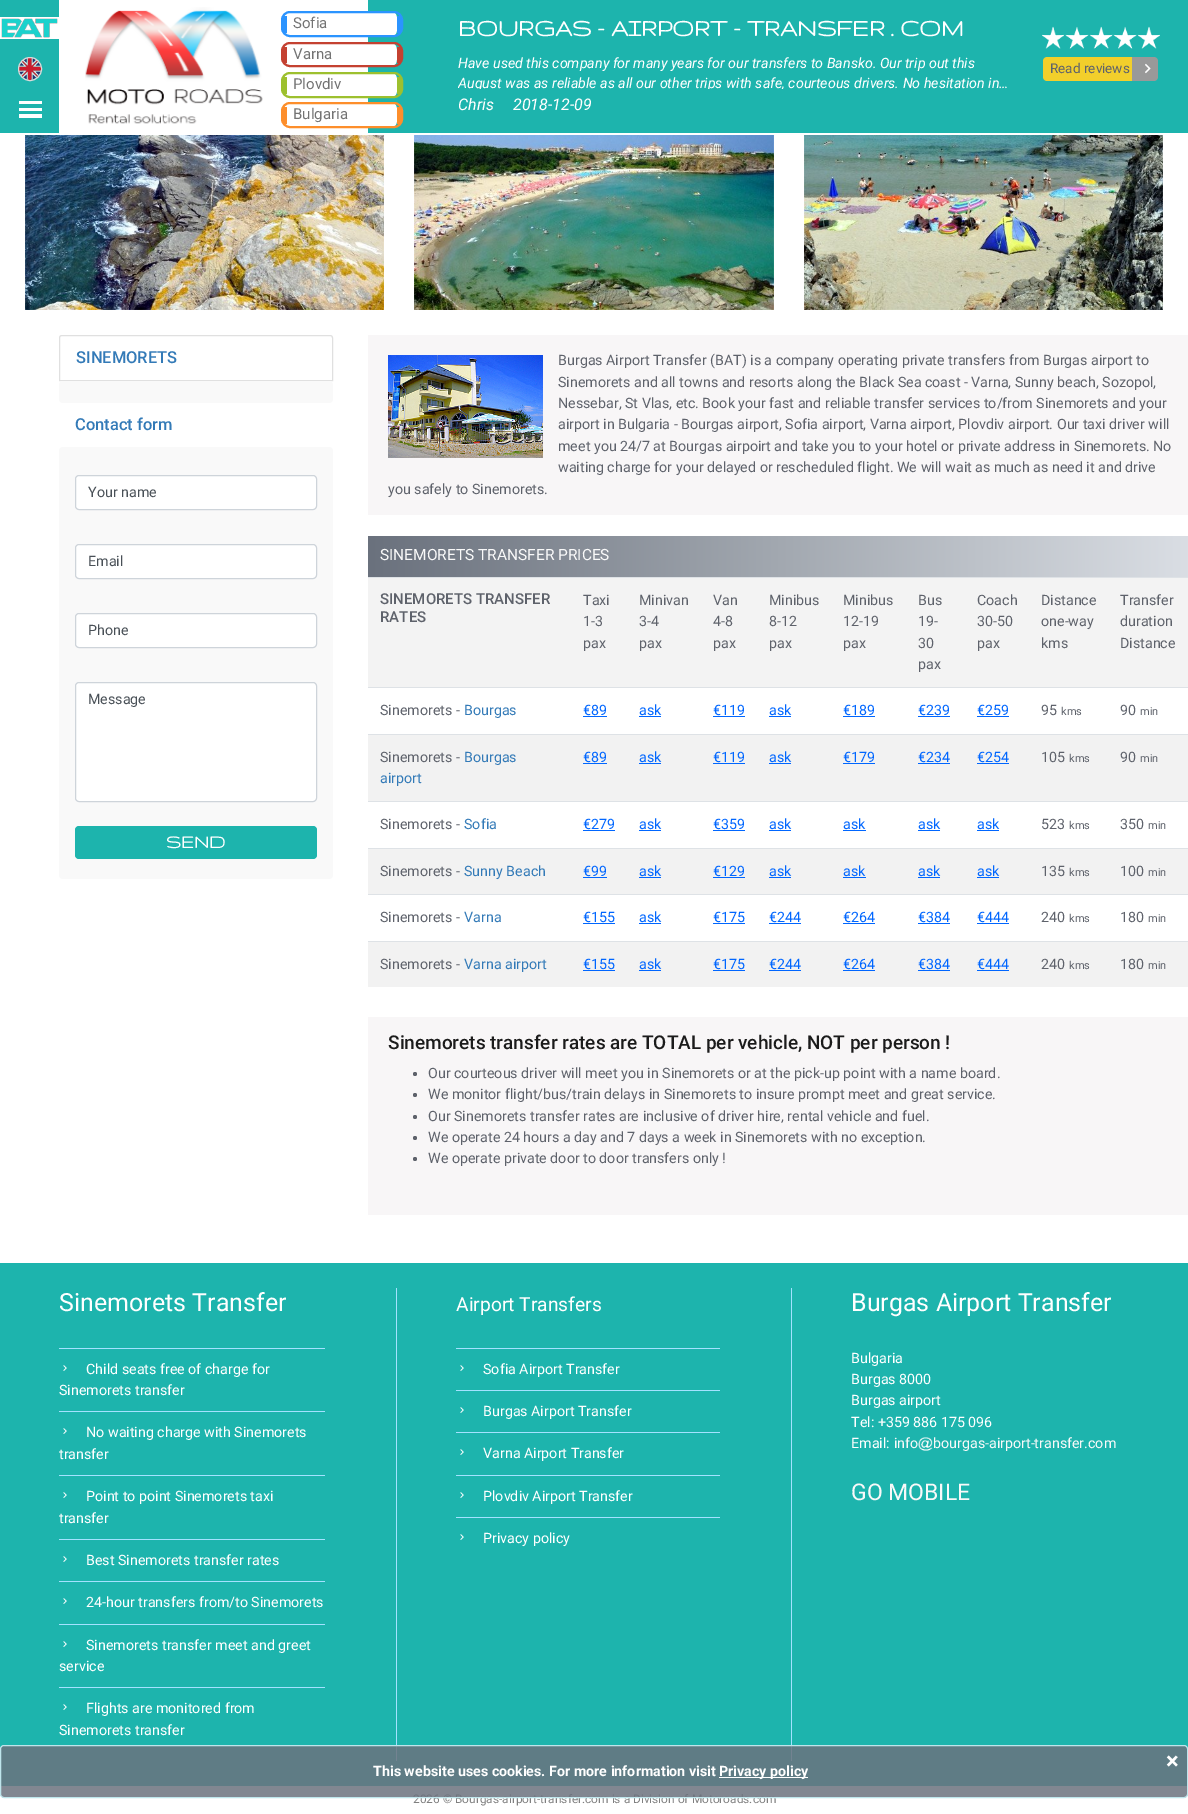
%!PS
<< /PageSize [1188 1814] /PageUsesTransparency true >> setpagedevice
/rgb { 3 { 255 div 3 1 roll } repeat setrgbcolor } def
/font { [ exch dup neg 0 0 3 -1 roll 0 0 ] selectfont } def
/alpha { dup .setfillconstantalpha .setstrokeconstantalpha } def
/circle { newpath 0 360 arc closepath } def
/roundrect { 5 dict begin { /r /h /w /y /x } { exch def } forall
  x r add y moveto x w add y 2 copy h add r arct x w add y h add x 1 index r arct
  x y h add x y r arct x y 2 copy exch w add exch r arct closepath end } def
/picture { 5 dict begin { /h /w /y /x /name } { exch def } forall
  gsave x y translate w h scale
  w h 8 [w 0 0 h 0 0] name (r) file false 3 colorimage grestore end } def
0 .pushpdf14devicefilter
0 1814 translate 1 -1 scale
4 setmiterlimit
255 255 255 rgb
0 0 1188 1814 rectfill
29 180 173 rgb
0 0 59 133 rectfill
(img/1.rgb) 0 17 59 22 picture
(img/2.rgb) 18 57 23 23 picture
219 217 217 rgb
30 69 11.5 circle stroke
[
  [19 101 23 3 255 255 255]
  [19 108 23 3 255 255 255]
  [19 114 23 4 255 255 255]
] { aload pop rgb rectfill } forall
(img/3.rgb) 85 7 178 117 picture
29 180 173 rgb
368 0 820 133 rectfill
255 255 255 rgb
290 13 moveto 394 13 lineto 396 13 397 16 397 20 curveto 397 28 lineto 397 32 396 35 394 35 curveto 290 35 lineto 288 35 287 32 287 28 curveto 287 20 lineto 287 16 288 13 290 13 curveto closepath fill
43 148 255 rgb
2 setlinewidth
282 12 120 24 8 roundrect stroke
397 16 4 17 rectfill
283 16 4 17 rectfill
255 255 255 rgb
290 44 moveto 377 44 lineto 393 44 397 40 397 54 curveto 397 69 395 65 377 65 curveto 289 65 lineto 288 64 287 61 287 59 curveto 287 57 286 44 290 44 curveto closepath fill
196 65 49 rgb
282 43 120 23 8 roundrect stroke
397 47 4 16 rectfill
283 47 4 16 rectfill
255 255 255 rgb
290 74 moveto 394 74 lineto 396 74 397 77 397 81 curveto 397 89 lineto 397 93 396 96 394 96 curveto 290 96 lineto 288 96 287 93 287 89 curveto 287 81 lineto 287 77 288 74 290 74 curveto closepath fill
157 192 46 rgb
282 73 120 24 8 roundrect stroke
397 77 4 17 rectfill
283 77 4 17 rectfill
255 255 255 rgb
290 104 moveto 394 104 lineto 396 104 397 107 397 111 curveto 397 119 lineto 397 123 396 126 394 126 curveto 290 126 lineto 288 126 287 123 287 119 curveto 287 111 lineto 287 107 288 104 290 104 curveto closepath fill
253 142 43 rgb
282 103 120 24 8 roundrect stroke
397 107 4 17 rectfill
283 107 4 17 rectfill
(img/4.rgb) 1042 26 118 23 picture
242 207 43 rgb
1047 57 moveto 1133 57 lineto 1133 81 lineto 1047 81 lineto 1045 81 1043 79 1043 77 curveto 1043 61 lineto 1043 59 1045 57 1047 57 curveto closepath fill
153 153 153 rgb
1132 57 moveto 1154 57 lineto 1156 57 1158 59 1158 61 curveto 1158 77 lineto 1158 79 1156 81 1154 81 curveto 1132 81 lineto closepath fill
(img/5.rgb) 1145 63 6 11 picture
(img/6.rgb) 25 135 359 175 picture
(img/7.rgb) 414 135 360 175 picture
(img/8.rgb) 804 135 359 175 picture
224 224 224 rgb
1 setlinewidth
62 335.5 moveto 330 335.5 lineto 331.5 335.5 332.5 336.5 332.5 338 curveto 332.5 380.5 lineto 59.5 380.5 lineto 59.5 338 lineto 59.5 336.5 60.5 335.5 62 335.5 curveto closepath stroke
249 249 249 rgb
59 381 274 22 4 roundrect fill
59 447 274 432 4 roundrect fill
255 255 255 rgb
75.5 475.5 241 34 3.5 roundrect gsave fill grestore
206 212 218 rgb
stroke
255 255 255 rgb
75.5 544.5 241 34 3.5 roundrect gsave fill grestore
206 212 218 rgb
stroke
255 255 255 rgb
75.5 613.5 241 34 3.5 roundrect gsave fill grestore
206 212 218 rgb
stroke
255 255 255 rgb
75.5 682.5 241 119 3.5 roundrect gsave fill grestore
206 212 218 rgb
stroke
29 180 173 rgb
75 826 242 33 4 roundrect fill
248 246 247 rgb
368 335 820 180 rectfill
(img/9.rgb) 388 355 155 103 picture
gsave 368 536 moveto 1188 536 lineto 1188 577 lineto 368 577 lineto closepath clip newpath
<< /ShadingType 2 /ColorSpace /DeviceRGB /Coords [368 557 1188 557] /Extend [true true] /Function << /FunctionType 2 /Domain [0 1] /C0 [0.416 0.443 0.49] /C1 [0.855 0.871 0.894] /N 1 >> >> shfill grestore
[
  [368 578 820 109 243 243 243]
  [368 577 820 1 222 226 230]
  [583 716 24 1 0 102 255]
  [639 716 22 1 0 102 255]
  [713 716 32 1 0 102 255]
  [769 716 22 1 0 102 255]
  [843 716 32 1 0 102 255]
  [918 716 32 1 0 102 255]
  [977 716 32 1 0 102 255]
  [368 687 820 1 222 226 230]
  [368 735 820 66 242 242 242]
  [583 763 24 1 0 102 255]
  [639 763 22 1 0 102 255]
  [713 763 32 1 0 102 255]
  [769 763 22 1 0 102 255]
  [843 763 32 1 0 102 255]
  [918 763 32 1 0 102 255]
  [977 763 32 1 0 102 255]
  [368 734 820 1 222 226 230]
  [583 830 32 1 0 102 255]
  [639 830 22 1 0 102 255]
  [713 830 32 1 0 102 255]
  [769 830 22 1 0 102 255]
  [843 830 23 1 0 102 255]
  [918 830 22 1 0 102 255]
  [977 830 22 1 0 102 255]
  [368 801 820 1 222 226 230]
  [368 849 820 45 242 242 242]
  [583 877 24 1 0 102 255]
  [639 877 22 1 0 102 255]
  [713 877 32 1 0 102 255]
  [769 877 22 1 0 102 255]
  [843 877 23 1 0 102 255]
  [918 877 22 1 0 102 255]
  [977 877 22 1 0 102 255]
  [368 848 820 1 222 226 230]
  [583 923 32 1 0 102 255]
  [639 923 22 1 0 102 255]
  [713 923 32 1 0 102 255]
  [769 923 32 1 0 102 255]
  [843 923 32 1 0 102 255]
  [918 923 32 1 0 102 255]
  [977 923 32 1 0 102 255]
  [368 894 820 1 222 226 230]
  [368 942 820 45 242 242 242]
  [583 970 32 1 0 102 255]
  [639 970 22 1 0 102 255]
  [713 970 32 1 0 102 255]
  [769 970 32 1 0 102 255]
  [843 970 32 1 0 102 255]
  [918 970 32 1 0 102 255]
  [977 970 32 1 0 102 255]
  [368 941 820 1 222 226 230]
  [368 1017 820 198 248 246 247]
] { aload pop rgb rectfill } forall
94 98 107 rgb
415 1074 2 circle fill
415 1095 2 circle fill
415 1117 2 circle fill
415 1138 2 circle fill
415 1159 2 circle fill
29 180 173 rgb
0 1263 1188 523 rectfill
163 226 255 rgb
59 1348 266 1 rectfill
(img/10.rgb) 63 1365 4 6 picture
59 1411 266 1 rectfill
(img/10.rgb) 63 1428 4 6 picture
59 1475 266 1 rectfill
(img/10.rgb) 63 1492 4 6 picture
59 1539 266 1 rectfill
(img/10.rgb) 63 1556 4 6 picture
59 1581 266 1 rectfill
(img/10.rgb) 63 1598 4 6 picture
59 1624 266 1 rectfill
(img/10.rgb) 63 1641 4 6 picture
59 1687 266 1 rectfill
(img/10.rgb) 63 1704 4 6 picture
[
  [791 1288 1 473 163 226 255]
  [396 1288 1 473 163 226 255]
  [456 1348 264 1 163 226 255]
] { aload pop rgb rectfill } forall
(img/10.rgb) 460 1365 4 6 picture
456 1390 264 1 rectfill
(img/10.rgb) 460 1407 4 6 picture
456 1432 264 1 rectfill
(img/10.rgb) 460 1449 4 6 picture
456 1475 264 1 rectfill
(img/10.rgb) 460 1492 4 6 picture
456 1517 264 1 rectfill
(img/10.rgb) 460 1534 4 6 picture
(img/11.rgb) 918 1437 15 14 picture
/Roboto-Regular 15 font
115 115 115 rgb
[
  [(Sofia) 293 28]
  [(Varna) 293 59]
  [(Plovdiv) 293 89]
  [(Bulgaria) 293 119]
] { aload pop moveto show } forall
/Gruppo-Bold 26.1 font
255 255 255 rgb
458 36 moveto (BOURGAS - AIRPORT - TRANSFER . COM) show
/Roboto-Italic 14.25 font
458 68 moveto (Have used this company for many years for our transfers to Bansko. Our trip out this) show
gsave
458 54 552 35 rectclip
458 88 moveto (August was as reliable as all our other trips with safe, courteous drivers. No hesitation in…) show
grestore
/Roboto-Italic 16 font
458 110 moveto (Chris) show
513 110 moveto (2018-12-09) show
/Roboto-Regular 13.5 font
94 98 107 rgb
1050 73 moveto (Read reviews) show
/Roboto-Medium 16.5 font
51 122 183 rgb
76 363 moveto (SINEMORETS) show
75 430 moveto (Contact form) show
/Roboto-Regular 14.25 font
73 80 87 rgb
[
  [(Your name) 88 497]
  [(Email) 88 566]
  [(Phone) 88 635]
  [(Message) 88 704]
] { aload pop moveto show } forall
/Gruppo-Bold 20 font
255 255 255 rgb
166 848 moveto (SEND) show
/Roboto-Regular 14.25 font
94 98 107 rgb
[
  [(Burgas Airport Transfer \(BAT\) is a company operating private transfers from Burgas airport to) 558 365]
  [(Sinemorets and all towns and resorts along the Black Sea coast - Varna, Sunny beach, Sozopol,) 558 387]
  [(Nessebar, St Vlas, etc. Book your fast and reliable transfer services to/from Sinemorets and your) 558 408]
  [(airport in Bulgaria - Bourgas airport, Sofia airport, Varna airport, Plovdiv airport. Our taxi driver will) 558 429]
  [(meet you 24/7 at Bourgas airpoirt and take you to your hotel or private address in Sinemorets. No) 558 451]
  [(waiting charge for your delayed or rescheduled flight. We will wait as much as need it and drive) 558 472]
  [(you safely to Sinemorets.) 388 494]
] { aload pop moveto show } forall
/Roboto-Regular 15.5 font
249 249 249 rgb
380 560 moveto (SINEMORETS TRANSFER PRICES) show
/Roboto-Medium 15 font
94 98 107 rgb
380 604 moveto (SINEMORETS TRANSFER) show
380 622 moveto (RATES) show
/Roboto-Regular 14.25 font
[
  [(Taxi) 583 605]
  [(1-3) 583 626]
  [(pax) 583 648]
  [(Minivan) 639 605]
  [(3-4) 639 626]
  [(pax) 639 648]
  [(Van) 713 605]
  [(4-8) 713 626]
  [(pax) 713 648]
  [(Minibus) 769 605]
  [(8-12) 769 626]
  [(pax) 769 648]
  [(Minibus) 843 605]
  [(12-19) 843 626]
  [(pax) 843 648]
  [(Bus) 918 605]
  [(19-) 918 626]
  [(30) 918 648]
  [(pax) 918 669]
  [(Coach) 977 605]
  [(30-50) 977 626]
  [(pax) 977 648]
  [(Distance) 1041 605]
  [(one-way) 1041 626]
  [(kms) 1041 648]
  [(Transfer) 1120 605]
  [(duration) 1120 626]
  [(Distance) 1120 648]
  [(Sinemorets -) 380 715]
] { aload pop moveto show } forall
51 122 183 rgb
464 715 moveto (Bourgas) show
0 102 255 rgb
[
  [(€89) 583 715]
  [(ask) 639 715]
  [(€119) 713 715]
  [(ask) 769 715]
  [(€189) 843 715]
  [(€239) 918 715]
  [(€259) 977 715]
] { aload pop moveto show } forall
94 98 107 rgb
1041 715 moveto (95) show
/Roboto-Regular 11 font
1061 715 moveto (kms) show
/Roboto-Regular 14.25 font
1120 715 moveto (90) show
/Roboto-Regular 11 font
1140 715 moveto (min) show
/Roboto-Regular 14.25 font
380 762 moveto (Sinemorets -) show
51 122 183 rgb
464 762 moveto (Bourgas) show
380 783 moveto (airport) show
0 102 255 rgb
[
  [(€89) 583 762]
  [(ask) 639 762]
  [(€119) 713 762]
  [(ask) 769 762]
  [(€179) 843 762]
  [(€234) 918 762]
  [(€254) 977 762]
] { aload pop moveto show } forall
94 98 107 rgb
1041 762 moveto (105) show
/Roboto-Regular 11 font
1069 762 moveto (kms) show
/Roboto-Regular 14.25 font
1120 762 moveto (90) show
/Roboto-Regular 11 font
1140 762 moveto (min) show
/Roboto-Regular 14.25 font
380 829 moveto (Sinemorets -) show
51 122 183 rgb
464 829 moveto (Sofia) show
0 102 255 rgb
[
  [(€279) 583 829]
  [(ask) 639 829]
  [(€359) 713 829]
  [(ask) 769 829]
  [(ask) 843 829]
  [(ask) 918 829]
  [(ask) 977 829]
] { aload pop moveto show } forall
94 98 107 rgb
1041 829 moveto (523) show
/Roboto-Regular 11 font
1069 829 moveto (kms) show
/Roboto-Regular 14.25 font
1120 829 moveto (350) show
/Roboto-Regular 11 font
1148 829 moveto (min) show
/Roboto-Regular 14.25 font
380 876 moveto (Sinemorets -) show
51 122 183 rgb
464 876 moveto (Sunny Beach) show
0 102 255 rgb
[
  [(€99) 583 876]
  [(ask) 639 876]
  [(€129) 713 876]
  [(ask) 769 876]
  [(ask) 843 876]
  [(ask) 918 876]
  [(ask) 977 876]
] { aload pop moveto show } forall
94 98 107 rgb
1041 876 moveto (135) show
/Roboto-Regular 11 font
1069 876 moveto (kms) show
/Roboto-Regular 14.25 font
1120 876 moveto (100) show
/Roboto-Regular 11 font
1148 876 moveto (min) show
/Roboto-Regular 14.25 font
380 922 moveto (Sinemorets -) show
51 122 183 rgb
464 922 moveto (Varna) show
0 102 255 rgb
[
  [(€155) 583 922]
  [(ask) 639 922]
  [(€175) 713 922]
  [(€244) 769 922]
  [(€264) 843 922]
  [(€384) 918 922]
  [(€444) 977 922]
] { aload pop moveto show } forall
94 98 107 rgb
1041 922 moveto (240) show
/Roboto-Regular 11 font
1069 922 moveto (kms) show
/Roboto-Regular 14.25 font
1120 922 moveto (180) show
/Roboto-Regular 11 font
1148 922 moveto (min) show
/Roboto-Regular 14.25 font
380 969 moveto (Sinemorets -) show
51 122 183 rgb
464 969 moveto (Varna airport) show
0 102 255 rgb
[
  [(€155) 583 969]
  [(ask) 639 969]
  [(€175) 713 969]
  [(€244) 769 969]
  [(€264) 843 969]
  [(€384) 918 969]
  [(€444) 977 969]
] { aload pop moveto show } forall
94 98 107 rgb
1041 969 moveto (240) show
/Roboto-Regular 11 font
1069 969 moveto (kms) show
/Roboto-Regular 14.25 font
1120 969 moveto (180) show
/Roboto-Regular 11 font
1148 969 moveto (min) show
/Roboto-Medium 19 font
27 27 27 rgb
388 1049 moveto (Sinemorets transfer rates are TOTAL per vehicle, NOT per person !) show
/Roboto-Regular 14.25 font
94 98 107 rgb
[
  [(Our courteous driver will meet you in Sinemorets or at the pick-up point with a name board.) 428 1078]
  [(We monitor flight/bus/train delays in Sinemorets to insure prompt meet and great service.) 428 1099]
  [(Our Sinemorets transfer rates are inclusive of driver hire, rental vehicle and fuel.) 428 1121]
  [(We operate 24 hours a day and 7 days a week in Sinemorets with no exception.) 428 1142]
  [(We operate private door to door transfers only !) 428 1163]
] { aload pop moveto show } forall
/Roboto-Regular 25 font
255 255 255 rgb
59 1311 moveto (Sinemorets Transfer) show
/Roboto-Regular 14.25 font
[
  [(Child seats free of charge for) 86 1374]
  [(Sinemorets transfer) 59 1395]
  [(No waiting charge with Sinemorets) 86 1437]
  [(transfer) 59 1459]
  [(Point to point Sinemorets taxi) 86 1501]
  [(transfer) 59 1523]
  [(Best Sinemorets transfer rates) 86 1565]
  [(24-hour transfers from/to Sinemorets) 86 1607]
  [(Sinemorets transfer meet and greet) 86 1650]
  [(service) 59 1671]
  [(Flights are monitored from) 86 1713]
  [(Sinemorets transfer) 59 1735]
] { aload pop moveto show } forall
/Roboto-Regular 19.25 font
456 1311 moveto (Airport Transfers) show
/Roboto-Regular 14.25 font
[
  [(Sofia Airport Transfer) 483 1374]
  [(Burgas Airport Transfer) 483 1416]
  [(Varna Airport Transfer) 483 1458]
  [(Plovdiv Airport Transfer) 483 1501]
  [(Privacy policy) 483 1543]
] { aload pop moveto show } forall
/Roboto-Regular 25 font
851 1311 moveto (Burgas Airport Transfer) show
/Roboto-Regular 14.25 font
[
  [(Bulgaria) 851 1363]
  [(Burgas 8000) 851 1384]
  [(Burgas airport) 851 1405]
  [(Tel: +359 886 175 096) 851 1427]
  [(Еmail:) 851 1448]
] { aload pop moveto show } forall
249 249 249 rgb
894 1448 moveto (info) show
933 1448 moveto (bourgas-airport-transfer.com) show
/Roboto-Regular 23 font
851 1500 moveto (GO MOBILE) show
/Roboto-Regular 11.9 font
128 128 128 rgb
413 1803 moveto (2026 © Bourgas-airport-transfer.com is a Division of Motoroads.com) show
0.85 alpha
107 114 126 rgb
0.5 1745.5 1187 52 3.5 roundrect fill
1 alpha
190 229 235 rgb
0.5 1745.5 1187 52 3.5 roundrect stroke
/Roboto-Bold 24 font
255 255 255 rgb
1166 1769 moveto (×) show
719 1777 89 1 rectfill
/Roboto-Bold 14.25 font
719 1776 moveto (Privacy policy) show
373 1776 moveto (This website uses cookies. For more information visit) show
.poppdf14devicefilter showpage
